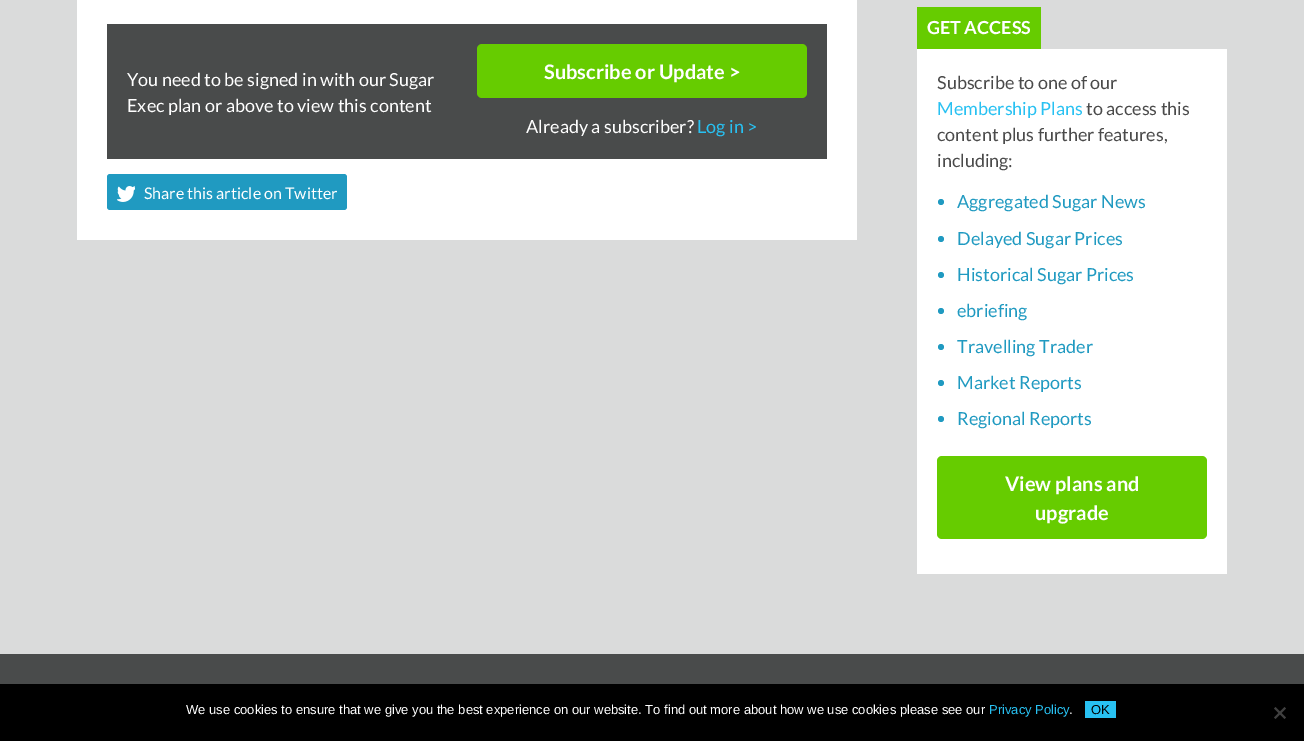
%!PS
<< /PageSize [1304 741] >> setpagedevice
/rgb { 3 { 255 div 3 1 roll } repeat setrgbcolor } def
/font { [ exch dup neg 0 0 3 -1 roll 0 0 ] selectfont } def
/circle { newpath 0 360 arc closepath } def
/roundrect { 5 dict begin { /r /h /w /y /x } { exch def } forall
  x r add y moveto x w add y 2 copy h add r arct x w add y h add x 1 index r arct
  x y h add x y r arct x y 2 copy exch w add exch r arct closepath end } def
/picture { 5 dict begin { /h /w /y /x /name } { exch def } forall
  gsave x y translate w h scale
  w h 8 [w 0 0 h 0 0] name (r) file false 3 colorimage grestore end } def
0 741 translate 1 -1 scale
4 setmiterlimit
218 219 219 rgb
0 0 1304 741 rectfill
255 255 255 rgb
77 0 780 240 rectfill
73 75 75 rgb
107 24 720 135 rectfill
102 204 0 rgb
477 44 330 54 5 roundrect fill
32 154 193 rgb
107 174 240 36 3 roundrect fill
(img/1.rgb) 117 186 18 16 picture
102 204 0 rgb
917 7 124 42 rectfill
255 255 255 rgb
917 49 310 525 rectfill
32 154 193 rgb
941 202 3 circle fill
941 239 3 circle fill
941 275 3 circle fill
941 311 3 circle fill
941 347 3 circle fill
941 383 3 circle fill
941 419 3 circle fill
102 204 0 rgb
937 456 270 83 5 roundrect fill
[
  [0 654 1304 30 73 75 75]
  [0 684 1304 57 0 0 0]
  [1085 701 31 17 40 193 242]
] { aload pop rgb rectfill } forall
64 64 64 rgb
1284.5 707 moveto 1286 708.5 lineto 1275.5 719 lineto 1274 717.5 lineto closepath fill
1274 708.5 moveto 1275.5 707 lineto 1286 717.5 lineto 1284.5 719 lineto closepath fill
/Lato-Regular 18 font
255 255 255 rgb
127 86 moveto (You need to be signed in with our Sugar) show
127 112 moveto (Exec plan or above to view this content) show
/Lato-Bold 20 font
544 79 moveto (Subscribe or Update >) show
/Lato-Regular 18 font
526 133 moveto (Already a subscriber?) show
40 193 242 rgb
697 133 moveto (Log in >) show
/Lato-Regular 16 font
255 255 255 rgb
144 199 moveto (Share this article on Twitter) show
/Lato-Bold 18 font
927 34 moveto (GET ACCESS) show
/Lato-Regular 18 font
74 74 74 rgb
937 89 moveto (Subscribe to one of our) show
40 193 242 rgb
937 115 moveto (Membership Plans) show
74 74 74 rgb
[
  [(to access this) 1086 115]
  [(content plus further features,) 937 141]
  [(including:) 937 167]
] { aload pop moveto show } forall
32 154 193 rgb
[
  [(Aggregated Sugar News) 957 208]
  [(Delayed Sugar Prices) 957 245]
  [(Historical Sugar Prices) 957 281]
  [(ebriefing) 957 317]
  [(Travelling Trader) 957 353]
  [(Market Reports) 957 389]
  [(Regional Reports) 957 425]
] { aload pop moveto show } forall
/Lato-Bold 20 font
255 255 255 rgb
1005 491 moveto (View plans and) show
1035 520 moveto (upgrade) show
/LiberationSans-Regular 13 font
186 714 moveto (We use cookies to ensure that we give you the best experience on our website. To find out more about how we use cookies please see our) show
40 193 242 rgb
989 714 moveto (Privacy Policy) show
255 255 255 rgb
1069 714 moveto (.) show
0 0 0 rgb
1091 714 moveto (OK) show
showpage
